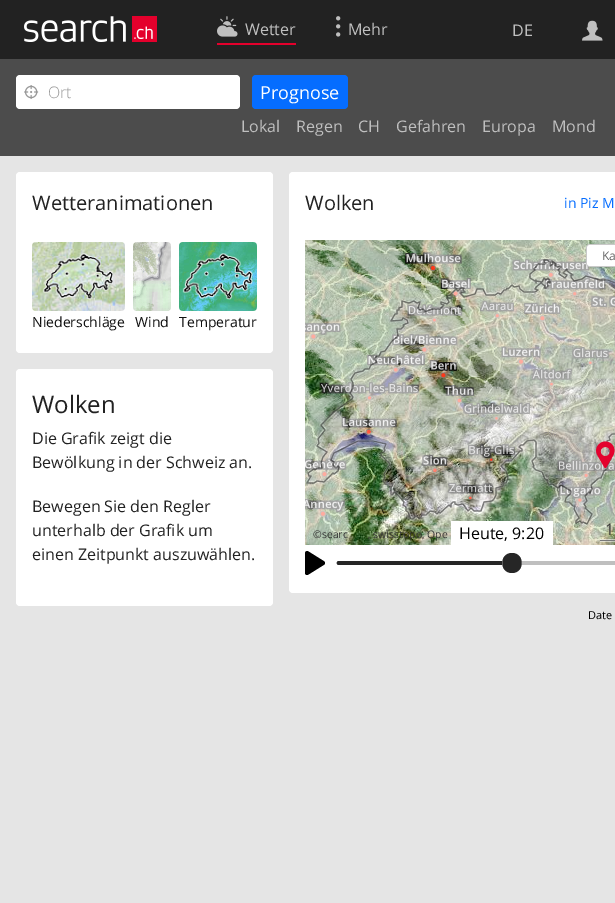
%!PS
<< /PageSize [615 903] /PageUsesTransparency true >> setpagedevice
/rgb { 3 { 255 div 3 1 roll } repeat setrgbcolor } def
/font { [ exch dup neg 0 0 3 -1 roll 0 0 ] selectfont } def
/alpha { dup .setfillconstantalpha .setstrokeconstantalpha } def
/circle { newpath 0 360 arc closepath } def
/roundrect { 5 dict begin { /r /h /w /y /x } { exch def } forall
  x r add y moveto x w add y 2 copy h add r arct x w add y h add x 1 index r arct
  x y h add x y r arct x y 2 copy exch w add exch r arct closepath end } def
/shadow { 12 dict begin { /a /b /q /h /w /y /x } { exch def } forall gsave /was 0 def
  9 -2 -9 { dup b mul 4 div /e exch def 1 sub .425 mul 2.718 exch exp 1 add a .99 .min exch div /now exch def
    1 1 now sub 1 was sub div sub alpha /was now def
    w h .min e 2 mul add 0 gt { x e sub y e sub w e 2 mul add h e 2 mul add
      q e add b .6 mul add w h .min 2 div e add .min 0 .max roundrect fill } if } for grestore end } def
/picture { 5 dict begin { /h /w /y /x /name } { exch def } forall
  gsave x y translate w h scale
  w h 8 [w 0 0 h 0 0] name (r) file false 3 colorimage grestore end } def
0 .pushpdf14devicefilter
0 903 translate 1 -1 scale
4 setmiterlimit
229 229 229 rgb
0 0 615 903 rectfill
34 34 34 rgb
0 0 615 59 rectfill
(img/1.rgb) 24 16 133 26 picture
228 0 44 rgb
217 43 79 2 rectfill
(img/2.rgb) 217 16 21 21 picture
(img/3.rgb) 336 16 5 21 picture
(img/4.rgb) 582 20 21 21 picture
76 76 76 rgb
0 59 615 97 rectfill
255 255 255 rgb
16 75 224 34 4 roundrect fill
(img/5.rgb) 24 85 15 14 picture
5 109 255 rgb
252 75 96 34 4 roundrect fill
255 255 255 rgb
16 172 257 181 4 roundrect fill
(img/6.rgb) 32 242 93 69 picture
209 213 209 rgb
73 298 1 1 rectfill
(img/7.rgb) 43 253 71 47 picture
(img/8.rgb) 133 242 38 69 picture
(img/9.rgb) 133 280 38 31 picture
(img/10.rgb) 179 242 78 69 picture
(img/11.rgb) 182 253 71 47 picture
255 255 255 rgb
16 369 257 237 4 roundrect fill
289 172 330 421 4 roundrect fill
(img/12.rgb) 305 240 310 305 picture
(img/15.rgb) 305 252 310 265 picture
(img/13.rgb) 305 240 310 305 picture
(img/14.rgb) 306 259 309 266 picture
(img/16.rgb) 596 441 19 28 picture
3 3 3 rgb
587 245 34 23 4 0.5 0.08 shadow
201 201 201 rgb
590 244 moveto 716 244 lineto 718 244 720 246 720 248 curveto 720 263 lineto 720 265 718 267 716 267 curveto 590 267 lineto 588 267 586 265 586 263 curveto 586 248 lineto 586 246 588 244 590 244 curveto closepath fill
255 255 255 rgb
590 245 moveto 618 245 lineto 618 266 lineto 590 266 lineto 588.5 266 587 264.5 587 263 curveto 587 248 lineto 587 246.5 588.5 245 590 245 curveto closepath fill
0.5 alpha
[
  [600 541 15 1 255 255 255]
  [600 539 15 1 255 255 255]
] { aload pop rgb rectfill } forall
1 alpha
[
  [600 540 15 1 120 120 120]
  [451 521 102 24 255 255 255]
] { aload pop rgb rectfill } forall
0 0 0 rgb
307 553 moveto 323 563 lineto 307 573 lineto closepath gsave fill grestore
4 setlinewidth
1 setlinejoin
stroke
191 191 191 rgb
339 561 moveto 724 561 lineto 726 561 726 563 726 564 curveto 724 565 lineto 339 565 lineto 336 565 336 561 339 561 curveto closepath fill
38 38 38 rgb
339 561 moveto 506 561 lineto 507 562 lineto 509 563 508 565 506 565 curveto 339 565 lineto 336 565 336 561 339 561 curveto closepath fill
255 255 255 rgb
512 563 10 circle fill
38 38 38 rgb
512 553 moveto 525 553 525 573 512 573 curveto 499 573 499 553 512 553 curveto closepath fill
/OpenSans-Regular 16 font
191 191 191 rgb
[
  [(Wetter) 245 35]
  [(Mehr) 348 35]
  [(DE) 512 36]
] { aload pop moveto show } forall
/OpenSans-Light 16 font
153 153 153 rgb
48 98 moveto (Ort) show
/OpenSans-Regular 18 font
255 255 255 rgb
260 99 moveto (Prognose) show
/OpenSans-Regular 16 font
191 191 191 rgb
[
  [(Lokal) 241 132]
  [(Regen) 296 132]
  [(CH) 358 132]
  [(Gefahren) 396 132]
  [(Europa) 482 132]
  [(Mond) 552 132]
] { aload pop moveto show } forall
/OpenSans-Regular 20 font
34 34 34 rgb
32 210 moveto (Wetteranimationen) show
/OpenSans-Regular 14 font
17 17 17 rgb
[
  [(Niederschläge) 32 327]
  [(Wind) 135 327]
  [(Temperatur) 179 327]
] { aload pop moveto show } forall
/OpenSans-Regular 24 font
34 34 34 rgb
32 413 moveto (Wolken) show
/OpenSans-Regular 16 font
[
  [(Die Grafik zeigt die) 32 444]
  [(Bewölkung in der Schweiz an.) 32 468]
  [(Bewegen Sie den Regler) 32 512]
  [(unterhalb der Grafik um) 32 536]
  [(einen Zeitpunkt auszuwählen.) 32 560]
] { aload pop moveto show } forall
/OpenSans-Regular 20 font
305 210 moveto (Wolken) show
/OpenSans-Regular 14 font
5 109 255 rgb
564 208 moveto (in Piz M) show
/OpenSans-Regular 12 font
104 104 104 rgb
602 260 moveto (Ka) show
/OpenSans-Regular 10.5 font
53 53 53 rgb
313 538 moveto (©searc) show
368 538 moveto (, swisstopo, Ope) show
/OpenSans-Regular 16 font
605 535 moveto (1) show
0 0 0 rgb
459 539 moveto (Heute, 9:20) show
/OpenSans-Regular 11 font
588 619 moveto (Date) show
.poppdf14devicefilter showpage
